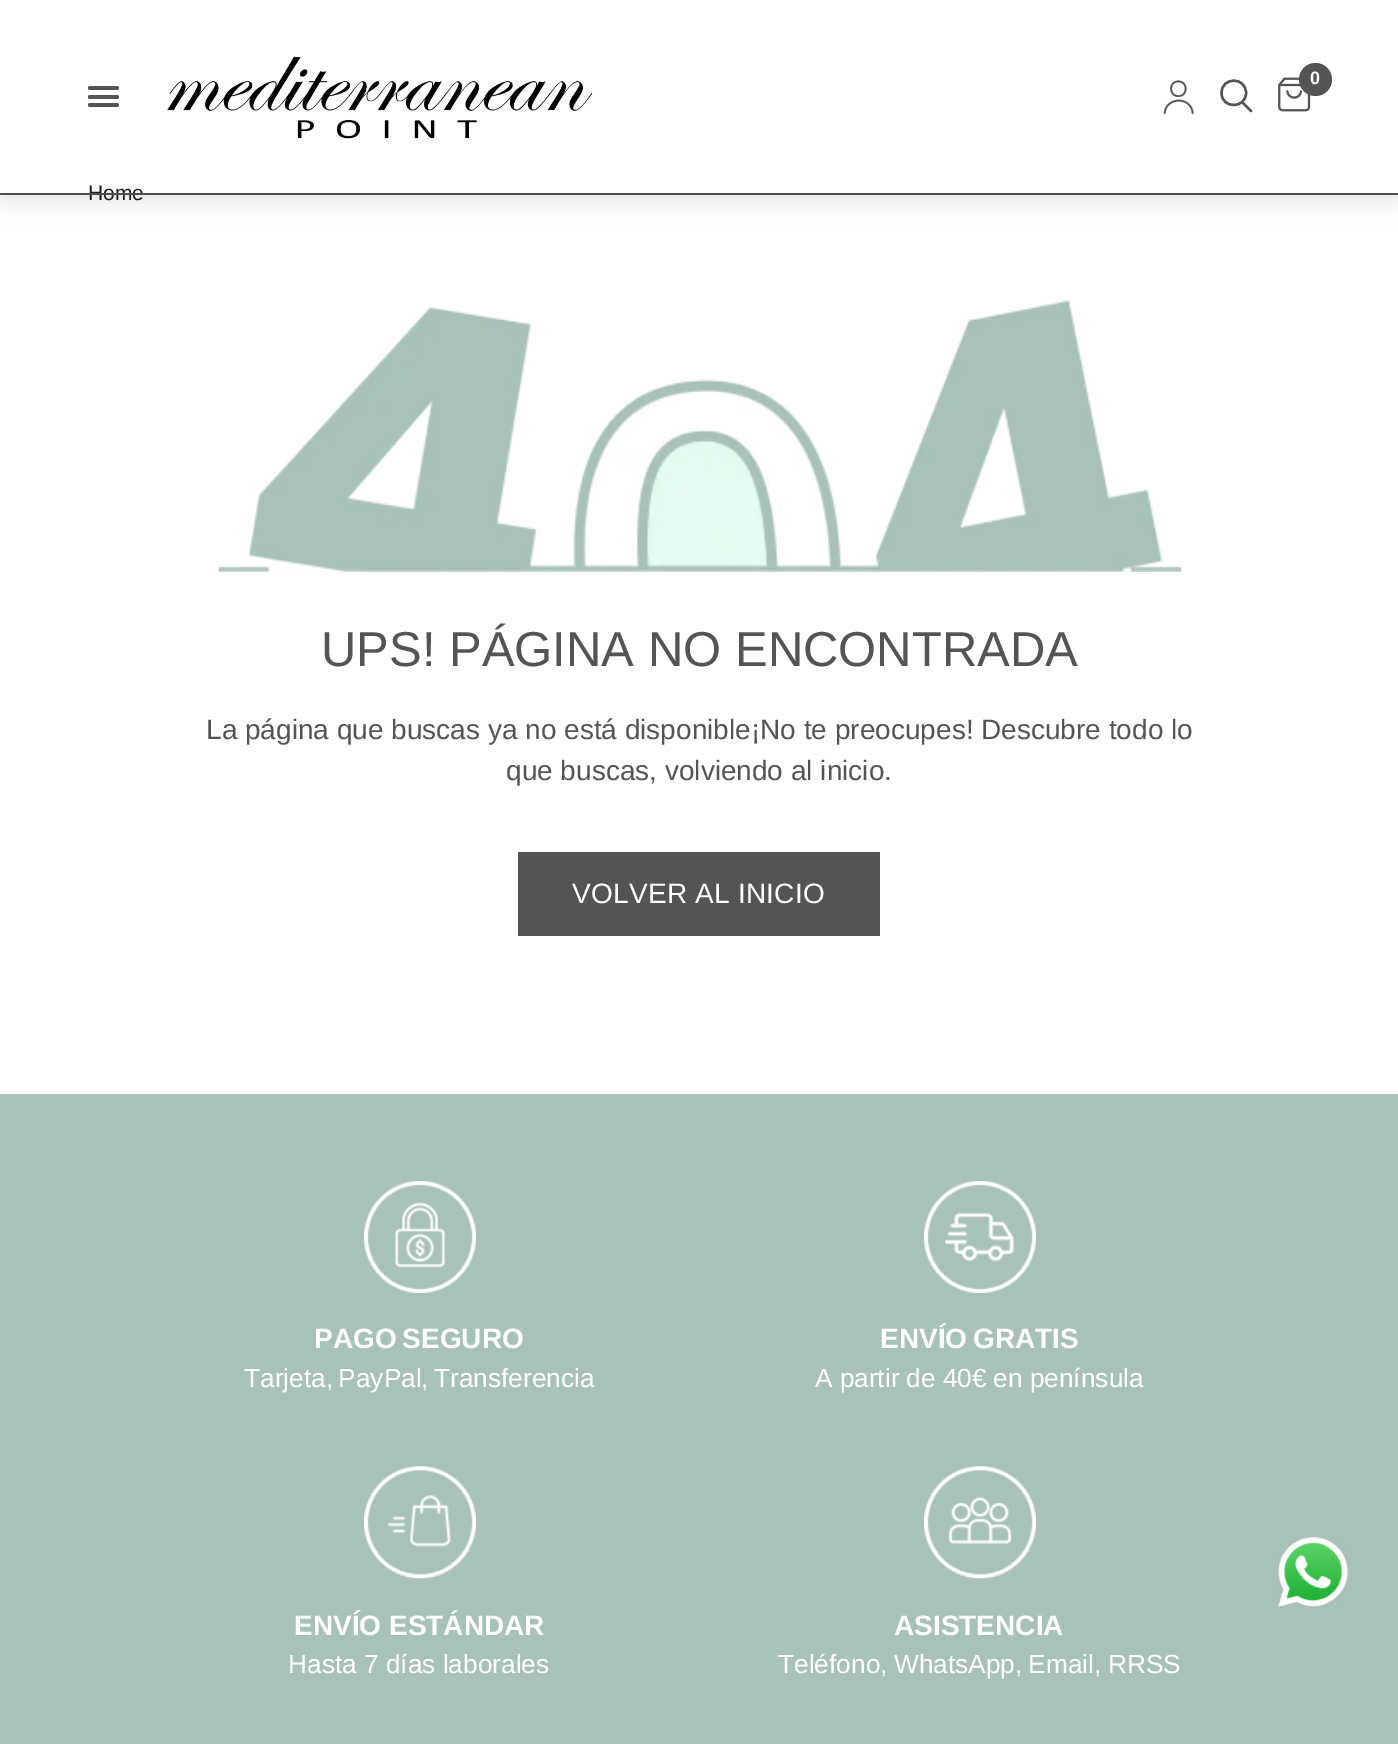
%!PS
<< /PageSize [1398 1744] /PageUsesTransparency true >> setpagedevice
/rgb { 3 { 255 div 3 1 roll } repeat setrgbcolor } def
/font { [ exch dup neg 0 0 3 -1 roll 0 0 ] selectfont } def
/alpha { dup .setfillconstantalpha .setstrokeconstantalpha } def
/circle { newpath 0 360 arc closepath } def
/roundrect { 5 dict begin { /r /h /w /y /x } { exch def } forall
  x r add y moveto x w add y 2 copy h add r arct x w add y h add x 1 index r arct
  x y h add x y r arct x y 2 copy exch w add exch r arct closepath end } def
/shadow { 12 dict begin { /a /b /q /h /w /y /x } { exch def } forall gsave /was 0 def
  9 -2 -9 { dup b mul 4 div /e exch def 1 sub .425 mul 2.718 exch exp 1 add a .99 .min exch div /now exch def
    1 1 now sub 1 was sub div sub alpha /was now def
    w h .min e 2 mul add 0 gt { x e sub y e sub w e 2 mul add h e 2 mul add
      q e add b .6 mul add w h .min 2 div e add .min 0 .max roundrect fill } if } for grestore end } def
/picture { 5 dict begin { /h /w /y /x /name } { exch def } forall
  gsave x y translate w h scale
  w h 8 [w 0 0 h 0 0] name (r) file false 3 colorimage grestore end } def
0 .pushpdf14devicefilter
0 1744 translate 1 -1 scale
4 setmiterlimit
255 255 255 rgb
0 0 1398 1744 rectfill
0.1 alpha
89 185 54 8 rectfill
1 alpha
(img/4.rgb) 218 300 964 272 picture
84 84 84 rgb
518 852 362 84 rectfill
168 193 185 rgb
0 1094 1398 650 rectfill
(img/5.rgb) 364 1181 112 112 picture
(img/6.rgb) 924 1181 112 112 picture
(img/7.rgb) 364 1466 112 113 picture
(img/8.rgb) 924 1466 112 113 picture
(img/9.rgb) 1278 1537 71 71 picture
/LiberationSans-Regular 21 font
29 29 27 rgb
88 200 moveto (Home) show
84 84 84 rgb
0 193 1398 2 rectfill
gsave
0 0 moveto 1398 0 lineto 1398 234 lineto 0 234 lineto closepath 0 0 moveto 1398 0 lineto 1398 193 lineto 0 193 lineto closepath eoclip newpath
0 0 0 rgb
0 9 1398 192 0 10.5 0.1 shadow
grestore
(img/3.rgb) 1278 77 33 35 picture
1315.5 79.5 16.5 circle fill
/LiberationSans-Bold 18 font
255 255 255 rgb
1310 84 moveto (0) show
(img/1.rgb) 167 56 426 83 picture
84 84 84 rgb
88 103 31 4 2 roundrect fill
88 95 31 4 2 roundrect fill
88 86 31 4 2 roundrect fill
2.4 setlinewidth
1 setlinecap
1 setlinejoin
1242.5 102.5 moveto 1251 111 lineto 1246 93 moveto 1246 109 1221.5 109 1221.5 93 curveto 1221.5 76.5 1246 76.5 1246 93 curveto closepath stroke
(img/2.rgb) 1163 80 31 34 picture
/LiberationSans-Regular 49 font
321 666 moveto (UPS! PÁGINA NO ENCONTRADA) show
/LiberationSans-Regular 28 font
206 739 moveto (La página que buscas ya no está disponible¡No te preocupes! Descubre todo lo) show
506 780 moveto (que buscas, volviendo al inicio.) show
255 255 255 rgb
572 903 moveto 0.25 0 (VOLVER AL INICIO) ashow
/LiberationSans-Bold 28 font
314 1348 moveto -2 0 32 (PAGO SEGURO) widthshow
/LiberationSans-Regular 26.25 font
244 1387 moveto -2 0 32 (Tarjeta, PayPal, Transferencia) widthshow
/LiberationSans-Bold 28 font
880 1348 moveto -2 0 32 (ENVÍO GRATIS) widthshow
/LiberationSans-Regular 26.25 font
815 1387 moveto -0.25 0 32 (A partir de 40€ en península) widthshow
/LiberationSans-Bold 28 font
294 1635 moveto (ENVÍO ESTÁNDAR) show
/LiberationSans-Regular 26.25 font
288 1673 moveto (Hasta 7 días laborales) show
/LiberationSans-Bold 28 font
894 1635 moveto (ASISTENCIA) show
/LiberationSans-Regular 26.25 font
778 1673 moveto -1 0 32 (Teléfono, WhatsApp, Email, RRSS) widthshow
.poppdf14devicefilter showpage
